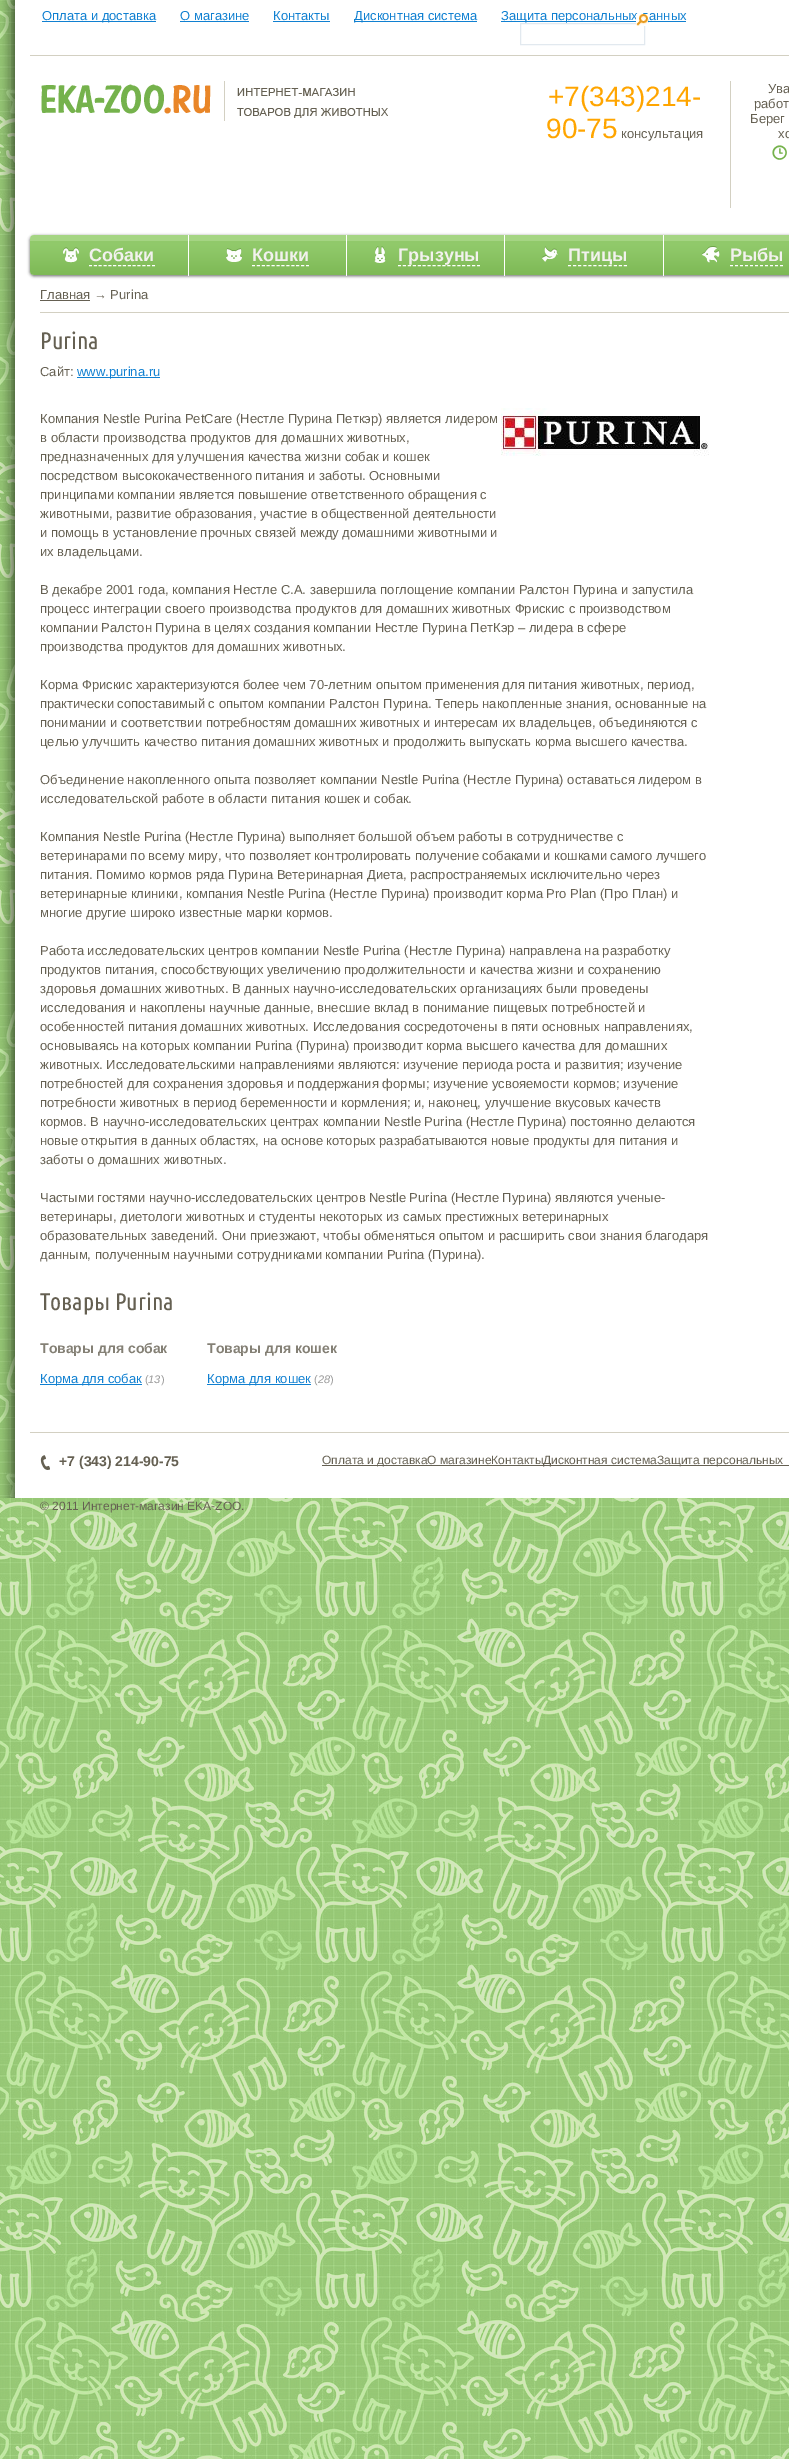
%!PS
<< /PageSize [789 2459] /PageUsesTransparency true >> setpagedevice
/rgb { 3 { 255 div 3 1 roll } repeat setrgbcolor } def
/font { [ exch dup neg 0 0 3 -1 roll 0 0 ] selectfont } def
/alpha { dup .setfillconstantalpha .setstrokeconstantalpha } def
/roundrect { 5 dict begin { /r /h /w /y /x } { exch def } forall
  x r add y moveto x w add y 2 copy h add r arct x w add y h add x 1 index r arct
  x y h add x y r arct x y 2 copy exch w add exch r arct closepath end } def
/shadow { 12 dict begin { /a /b /q /h /w /y /x } { exch def } forall gsave /was 0 def
  9 -2 -9 { dup b mul 4 div /e exch def 1 sub .425 mul 2.718 exch exp 1 add a .99 .min exch div /now exch def
    1 1 now sub 1 was sub div sub alpha /was now def
    w h .min e 2 mul add 0 gt { x e sub y e sub w e 2 mul add h e 2 mul add
      q e add b .6 mul add w h .min 2 div e add .min 0 .max roundrect fill } if } for grestore end } def
/picture { 5 dict begin { /h /w /y /x /name } { exch def } forall
  gsave x y translate w h scale
  w h 8 [w 0 0 h 0 0] name (r) file false 3 colorimage grestore end } def
0 .pushpdf14devicefilter
0 2459 translate 1 -1 scale
4 setmiterlimit
255 255 255 rgb
0 0 789 2459 rectfill
(img/1.rgb) 0 0 789 2459 picture
(img/2.rgb) 0 0 15 1498 picture
[
  [15 0 774 1498 255 255 255]
  [30 55 759 1 211 208 194]
  [42 21 114 1 16 128 209]
  [180 21 69 1 16 128 209]
  [273 21 57 1 16 128 209]
  [354 21 123 1 16 128 209]
  [501 21 185 1 16 128 209]
] { aload pop rgb rectfill } forall
226 233 239 rgb
520.5 23.5 124 21 rectstroke
(img/4.rgb) 41 81 347 40 picture
211 208 194 rgb
730 81 1 127 rectfill
(img/5.rgb) 772 145 15 15 picture
102 102 102 rgb
30 236 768 40 4 1.5 1 shadow
(img/6.rgb) 30 235 158 40 picture
(img/7.rgb) 63 247 16 16 picture
255 255 255 rgb
[3 1.85] 0 setdash
89 265.5 moveto 155 265.5 lineto stroke
(img/8.rgb) 189 235 157 40 picture
188 235 1 41 rectfill
(img/9.rgb) 226 248 16 14 picture
[3 1.91] 0 setdash
252 265.5 moveto 309 265.5 lineto stroke
(img/8.rgb) 347 235 157 40 picture
346 235 1 41 rectfill
(img/10.rgb) 374 246 12 17 picture
[3 1.94] 0 setdash
398 265.5 moveto 480 265.5 lineto stroke
(img/11.rgb) 505 235 158 40 picture
504 235 1 41 rectfill
(img/12.rgb) 542 246 16 16 picture
[3 2.09] 0 setdash
568 265.5 moveto 627 265.5 lineto stroke
(img/13.rgb) 664 235 125 40 picture
663 235 1 41 rectfill
(img/14.rgb) 702 246 18 17 picture
[3 2] 0 setdash
730 265.5 moveto 783 265.5 lineto stroke
211 208 194 rgb
40 312 749 1 rectfill
101 96 82 rgb
40 300 50 1 rectfill
(img/15.rgb) 501 408 208 48 picture
[
  [77 377 83 1 16 128 209]
  [40 1384 102 1 16 128 209]
  [207 1384 104 1 16 128 209]
  [30 1432 759 1 211 208 194]
] { aload pop rgb rectfill } forall
(img/16.rgb) 40 1455 10 15 picture
[
  [322 1465 105 1 101 96 82]
  [657 1465 132 1 101 96 82]
  [427 1465 230 1 101 96 82]
] { aload pop rgb rectfill } forall
/LiberationSans-Regular 13 font
16 128 209 rgb
[
  [(Оплата и доставка) 42 20]
  [(О магазине) 180 20]
  [(Контакты) 273 20]
  [(Дисконтная система) 354 20]
  [(Защита персональных данных) 501 20]
] { aload pop moveto show } forall
(img/3.rgb) 636 14 12 12 picture
/LiberationSans-Regular 28 font
255 165 0 rgb
548 106 moveto (+7\(343\)214-) show
546 138 moveto (90-75) show
/LiberationSans-Regular 13 font
101 96 82 rgb
[
  [(консультация) 621 138]
  [(Ува) 768 93]
  [(работ) 754 108]
  [(Берег) 750 123]
  [(хо) 778 138]
] { aload pop moveto show } forall
/LiberationSans-Bold 18 font
242 241 238 rgb
[
  [(Собаки) 89 261]
  [(Кошки) 252 261]
  [(Грызуны) 398 261]
  [(Птицы) 568 261]
  [(Рыбы) 730 261]
] { aload pop moveto show } forall
/LiberationSans-Regular 13 font
101 96 82 rgb
40 299 moveto (Главная → Purina) show
/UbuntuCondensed-Regular 24 font
40 349 moveto (Purina) show
/LiberationSans-Regular 13 font
40 376 moveto (Сайт:) show
16 128 209 rgb
77 376 moveto (www.purina.ru) show
101 96 82 rgb
[
  [(Компания Nestle Purina PetCare \(Нестле Пурина Петкэр\) является лидером) 40 423]
  [(в области производства продуктов для домашних животных,) 40 442]
  [(предназначенных для улучшения качества жизни собак и кошек) 40 461]
  [(посредством высококачественного питания и заботы. Основными) 40 480]
  [(принципами компании является повышение ответственного обращения с) 40 499]
  [(животными, развитие образования, участие в общественной деятельности) 40 518]
  [(и помощь в установление прочных связей между домашними животными и) 40 537]
  [(их владельцами.) 40 556]
  [(В декабре 2001 года, компания Нестле С.А. завершила поглощение компании Ралстон Пурина и запустила) 40 594]
  [(процесс интеграции своего производства продуктов для домашних животных Фрискис с производством) 40 613]
  [(компании Ралстон Пурина в целях создания компании Нестле Пурина ПетКэр – лидера в сфере) 40 632]
  [(производства продуктов для домашних животных.) 40 651]
  [(Корма Фрискис характеризуются более чем 70-летним опытом применения для питания животных, период,) 40 689]
  [(практически сопоставимый с опытом компании Ралстон Пурина. Теперь накопленные знания, основанные на) 40 708]
  [(понимании и соответствии потребностям домашних животных и интересам их владельцев, объединяются с) 40 727]
  [(целью улучшить качество питания домашних животных и продолжить выпускать корма высшего качества.) 40 746]
  [(Объединение накопленного опыта позволяет компании Nestle Purina \(Нестле Пурина\) оставаться лидером в) 40 784]
  [(исследовательской работе в области питания кошек и собак.) 40 803]
  [(Компания Nestle Purina \(Нестле Пурина\) выполняет большой объем работы в сотрудничестве с) 40 841]
  [(ветеринарами по всему миру, что позволяет контролировать получение собаками и кошками самого лучшего) 40 860]
  [(питания. Помимо кормов ряда Пурина Ветеринарная Диета, распространяемых исключительно через) 40 879]
  [(ветеринарные клиники, компания Nestle Purina \(Нестле Пурина\) производит корма Pro Plan \(Про План\) и) 40 898]
  [(многие другие широко известные марки кормов.) 40 917]
  [(Работа исследовательских центров компании Nestle Purina \(Нестле Пурина\) направлена на разработку) 40 955]
  [(продуктов питания, способствующих увеличению продолжительности и качества жизни и сохранению) 40 974]
  [(здоровья домашних животных. В данных научно-исследовательских организациях были проведены) 40 993]
  [(исследования и накоплены научные данные, внесшие вклад в понимание пищевых потребностей и) 40 1012]
  [(особенностей питания домашних животных. Исследования сосредоточены в пяти основных направлениях,) 40 1031]
  [(основываясь на которых компании Purina \(Пурина\) производит корма высшего качества для домашних) 40 1050]
  [(животных. Исследовательскими направлениями являются: изучение периода роста и развития; изучение) 40 1069]
  [(потребностей для сохранения здоровья и поддержания формы; изучение усвояемости кормов; изучение) 40 1088]
  [(потребности животных в период беременности и кормления; и, наконец, улучшение вкусовых качеств) 40 1107]
  [(кормов. В научно-исследовательских центрах компании Nestle Purina \(Нестле Пурина\) постоянно делаются) 40 1126]
  [(новые открытия в данных областях, на основе которых разрабатываются новые продукты для питания и) 40 1145]
  [(заботы о домашних животных.) 40 1164]
  [(Частыми гостями научно-исследовательских центров Nestle Purina \(Нестле Пурина\) являются ученые-) 40 1202]
  [(ветеринары, диетологи животных и студенты некоторых из самых престижных ветеринарных) 40 1221]
  [(образовательных заведений. Они приезжают, чтобы обменяться опытом и расширить свои знания благодаря) 40 1240]
  [(данным, полученным научными сотрудниками компании Purina \(Пурина\).) 40 1259]
] { aload pop moveto show } forall
/UbuntuCondensed-Regular 24 font
40 1310 moveto (Товары Purina) show
/LiberationSans-Bold 14 font
132 128 117 rgb
40 1353 moveto (Товары для собак) show
/LiberationSans-Regular 13 font
16 128 209 rgb
40 1383 moveto (Корма для собак) show
/LiberationSans-Regular 11 font
153 153 153 rgb
145 1383 moveto (\() show
/LiberationSans-Italic 11 font
148 1383 moveto (13) show
/LiberationSans-Regular 11 font
161 1383 moveto (\)) show
/LiberationSans-Bold 14 font
132 128 117 rgb
207 1353 moveto (Товары для кошек) show
/LiberationSans-Regular 13 font
16 128 209 rgb
207 1383 moveto (Корма для кошек) show
/LiberationSans-Regular 11 font
153 153 153 rgb
314 1383 moveto (\() show
/LiberationSans-Italic 11 font
318 1383 moveto (28) show
/LiberationSans-Regular 11 font
330 1383 moveto (\)) show
/LiberationSans-Bold 14 font
101 96 82 rgb
59 1466 moveto (+7 \(343\) 214-90-75) show
/LiberationSans-Regular 12 font
[
  [(Оплата и доставкаО магазинеКонтакты) 322 1464]
  [(Дисконтная система) 543 1464]
  [(Защита персональных) 657 1464]
  [(© 2011 Интернет-магазин EKА-ZOO.) 40 1510]
] { aload pop moveto show } forall
.poppdf14devicefilter showpage
